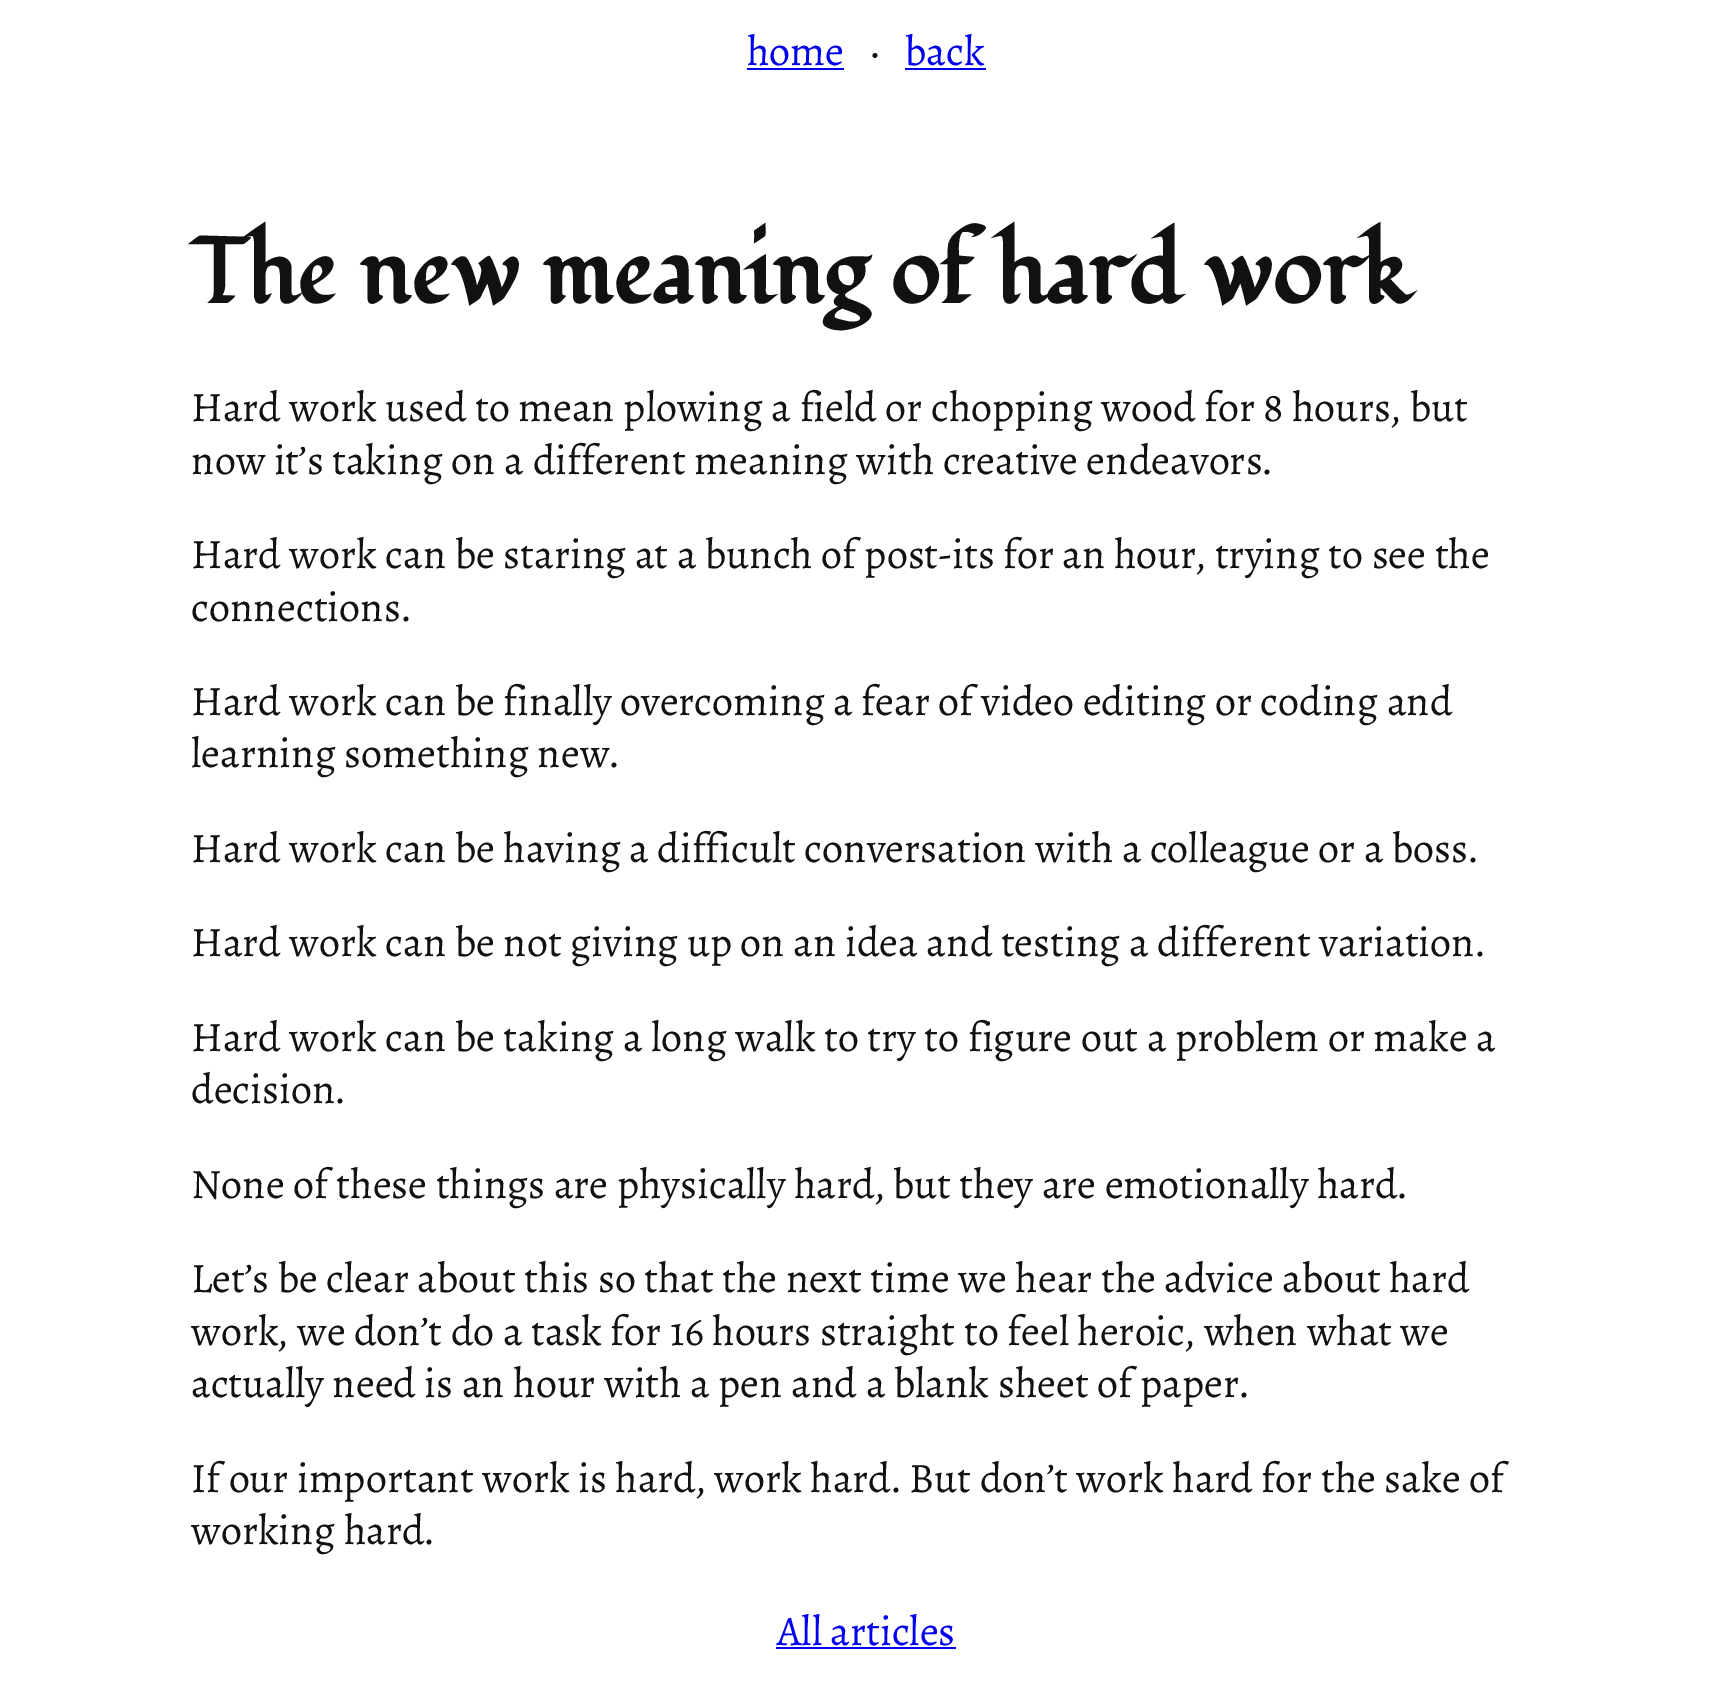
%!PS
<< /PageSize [1731 1684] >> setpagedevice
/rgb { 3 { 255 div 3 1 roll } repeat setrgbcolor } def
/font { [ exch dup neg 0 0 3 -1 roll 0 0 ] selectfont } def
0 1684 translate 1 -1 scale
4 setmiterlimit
255 255 255 rgb
0 0 1731 1684 rectfill
[
  [747 68 97 2 0 0 238]
  [905 68 81 2 0 0 238]
  [776 1647 180 2 0 0 238]
] { aload pop rgb rectfill } forall
/Sahitya-Regular 42 font
747 65 moveto (home) show
17 17 17 rgb
870 65 moveto (·) show
0 0 238 rgb
905 65 moveto (back) show
/Fondamento-Bold 92.4 font
17 17 17 rgb
191 303 moveto (The new meaning of hard work) show
/Sahitya-Regular 42 font
[
  [(Hard work used to mean plowing a field or chopping wood for 8 hours, but) 191 421]
  [(now it’s taking on a different meaning with creative endeavors.) 191 474]
  [(Hard work can be staring at a bunch of post-its for an hour, trying to see the) 191 568]
  [(connections.) 191 621]
  [(Hard work can be finally overcoming a fear of video editing or coding and) 191 715]
  [(learning something new.) 191 767]
  [(Hard work can be having a difficult conversation with a colleague or a boss.) 191 862]
  [(Hard work can be not giving up on an idea and testing a different variation.) 191 956]
  [(Hard work can be taking a long walk to try to figure out a problem or make a) 191 1051]
  [(decision.) 191 1103]
  [(None of these things are physically hard, but they are emotionally hard.) 191 1198]
  [(Let’s be clear about this so that the next time we hear the advice about hard) 191 1292]
  [(work, we don’t do a task for 16 hours straight to feel heroic, when what we) 191 1345]
  [(actually need is an hour with a pen and a blank sheet of paper.) 191 1397]
  [(If our important work is hard, work hard. But don’t work hard for the sake of) 191 1492]
  [(working hard.) 191 1544]
] { aload pop moveto show } forall
0 0 238 rgb
777 1645 moveto (All articles) show
showpage
